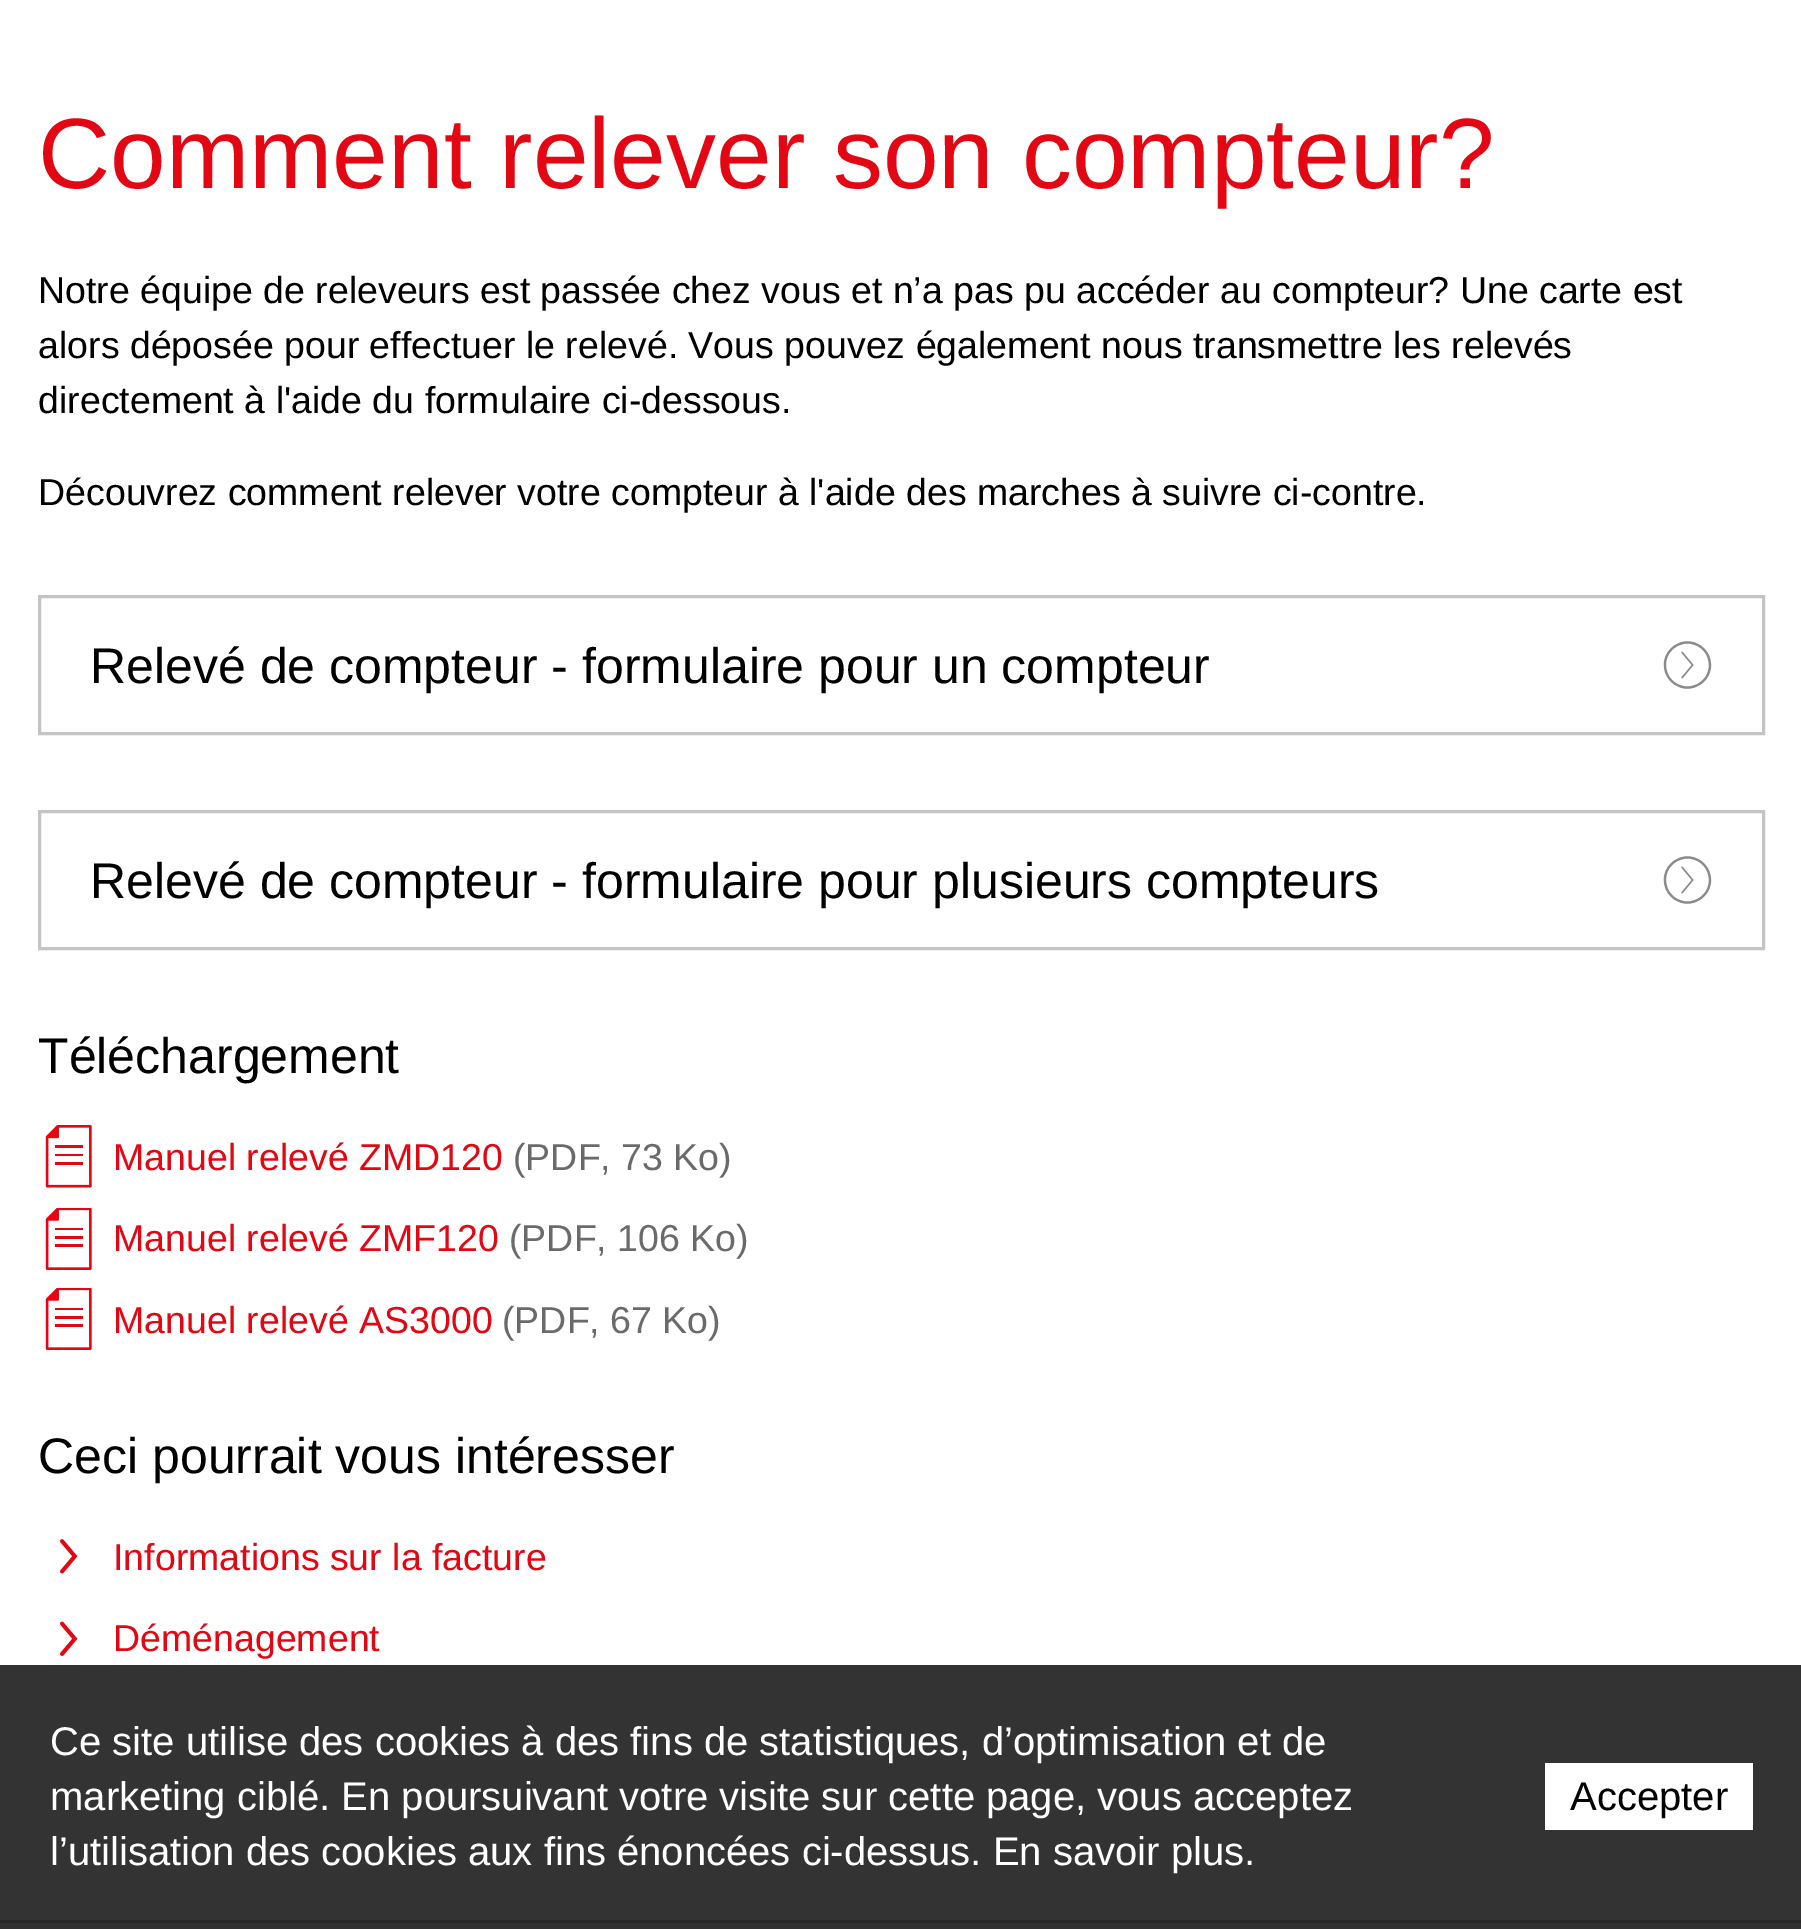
%!PS
<< /PageSize [1801 1929] >> setpagedevice
/rgb { 3 { 255 div 3 1 roll } repeat setrgbcolor } def
/font { [ exch dup neg 0 0 3 -1 roll 0 0 ] selectfont } def
/picture { 5 dict begin { /h /w /y /x /name } { exch def } forall
  gsave x y translate w h scale
  w h 8 [w 0 0 h 0 0] name (r) file false 3 colorimage grestore end } def
0 1929 translate 1 -1 scale
4 setmiterlimit
255 255 255 rgb
0 0 1801 1929 rectfill
51 51 51 rgb
0 1665 1801 255 rectfill
196 196 196 rgb
3 setlinewidth
39.5 596.5 1724 137 rectstroke
(img/1.rgb) 1663 641 49 48 picture
39.5 811.5 1724 137 rectstroke
(img/1.rgb) 1663 856 49 48 picture
(img/2.rgb) 45 1125 47 63 picture
(img/3.rgb) 45 1208 47 62 picture
(img/3.rgb) 45 1288 47 62 picture
(img/4.rgb) 60 1539 18 35 picture
(img/5.rgb) 60 1621 18 35 picture
[
  [0 1923 1801 6 49 49 49]
  [0 1920 1801 3 39 39 39]
  [1545 1763 208 67 255 255 255]
] { aload pop rgb rectfill } forall
/LiberationSans-Regular 100 font
227 6 19 rgb
38 188 moveto (Comment relever son compteur?) show
/LiberationSans-Regular 37.5 font
0 0 0 rgb
[
  [(Notre équipe de releveurs est passée chez vous et n’a pas pu accéder au compteur? Une carte est) 38 303]
  [(alors déposée pour effectuer le relevé. Vous pouvez également nous transmettre les relevés) 38 358]
  [(directement à l'aide du formulaire ci-dessous.) 38 413]
  [(Découvrez comment relever votre compteur à l'aide des marches à suivre ci-contre.) 38 505]
] { aload pop moveto show } forall
/LiberationSans-Regular 50 font
[
  [(Relevé de compteur - formulaire pour un compteur) 90 683]
  [(Relevé de compteur - formulaire pour plusieurs compteurs) 90 898]
  [(Téléchargement) 38 1073]
] { aload pop moveto show } forall
/LiberationSans-Regular 37.5 font
227 6 19 rgb
113 1170 moveto (Manuel relevé ZMD120) show
106 106 106 rgb
513 1170 moveto (\(PDF, 73 Ko\)) show
227 6 19 rgb
113 1251 moveto (Manuel relevé ZMF120) show
106 106 106 rgb
509 1251 moveto (\(PDF, 106 Ko\)) show
227 6 19 rgb
113 1333 moveto (Manuel relevé AS3000) show
106 106 106 rgb
502 1333 moveto (\(PDF, 67 Ko\)) show
/LiberationSans-Regular 50 font
0 0 0 rgb
38 1473 moveto (Ceci pourrait vous intéresser) show
/LiberationSans-Regular 37.5 font
227 6 19 rgb
113 1570 moveto (Informations sur la facture) show
113 1651 moveto (Déménagement) show
/LiberationSans-Regular 40 font
255 255 255 rgb
[
  [(Ce site utilise des cookies à des fins de statistiques, d’optimisation et de) 50 1755]
  [(marketing ciblé. En poursuivant votre visite sur cette page, vous acceptez) 50 1810]
  [(l’utilisation des cookies aux fins énoncées ci-dessus. En savoir plus.) 50 1865]
] { aload pop moveto show } forall
0 0 0 rgb
1570 1810 moveto (Accepter) show
showpage
